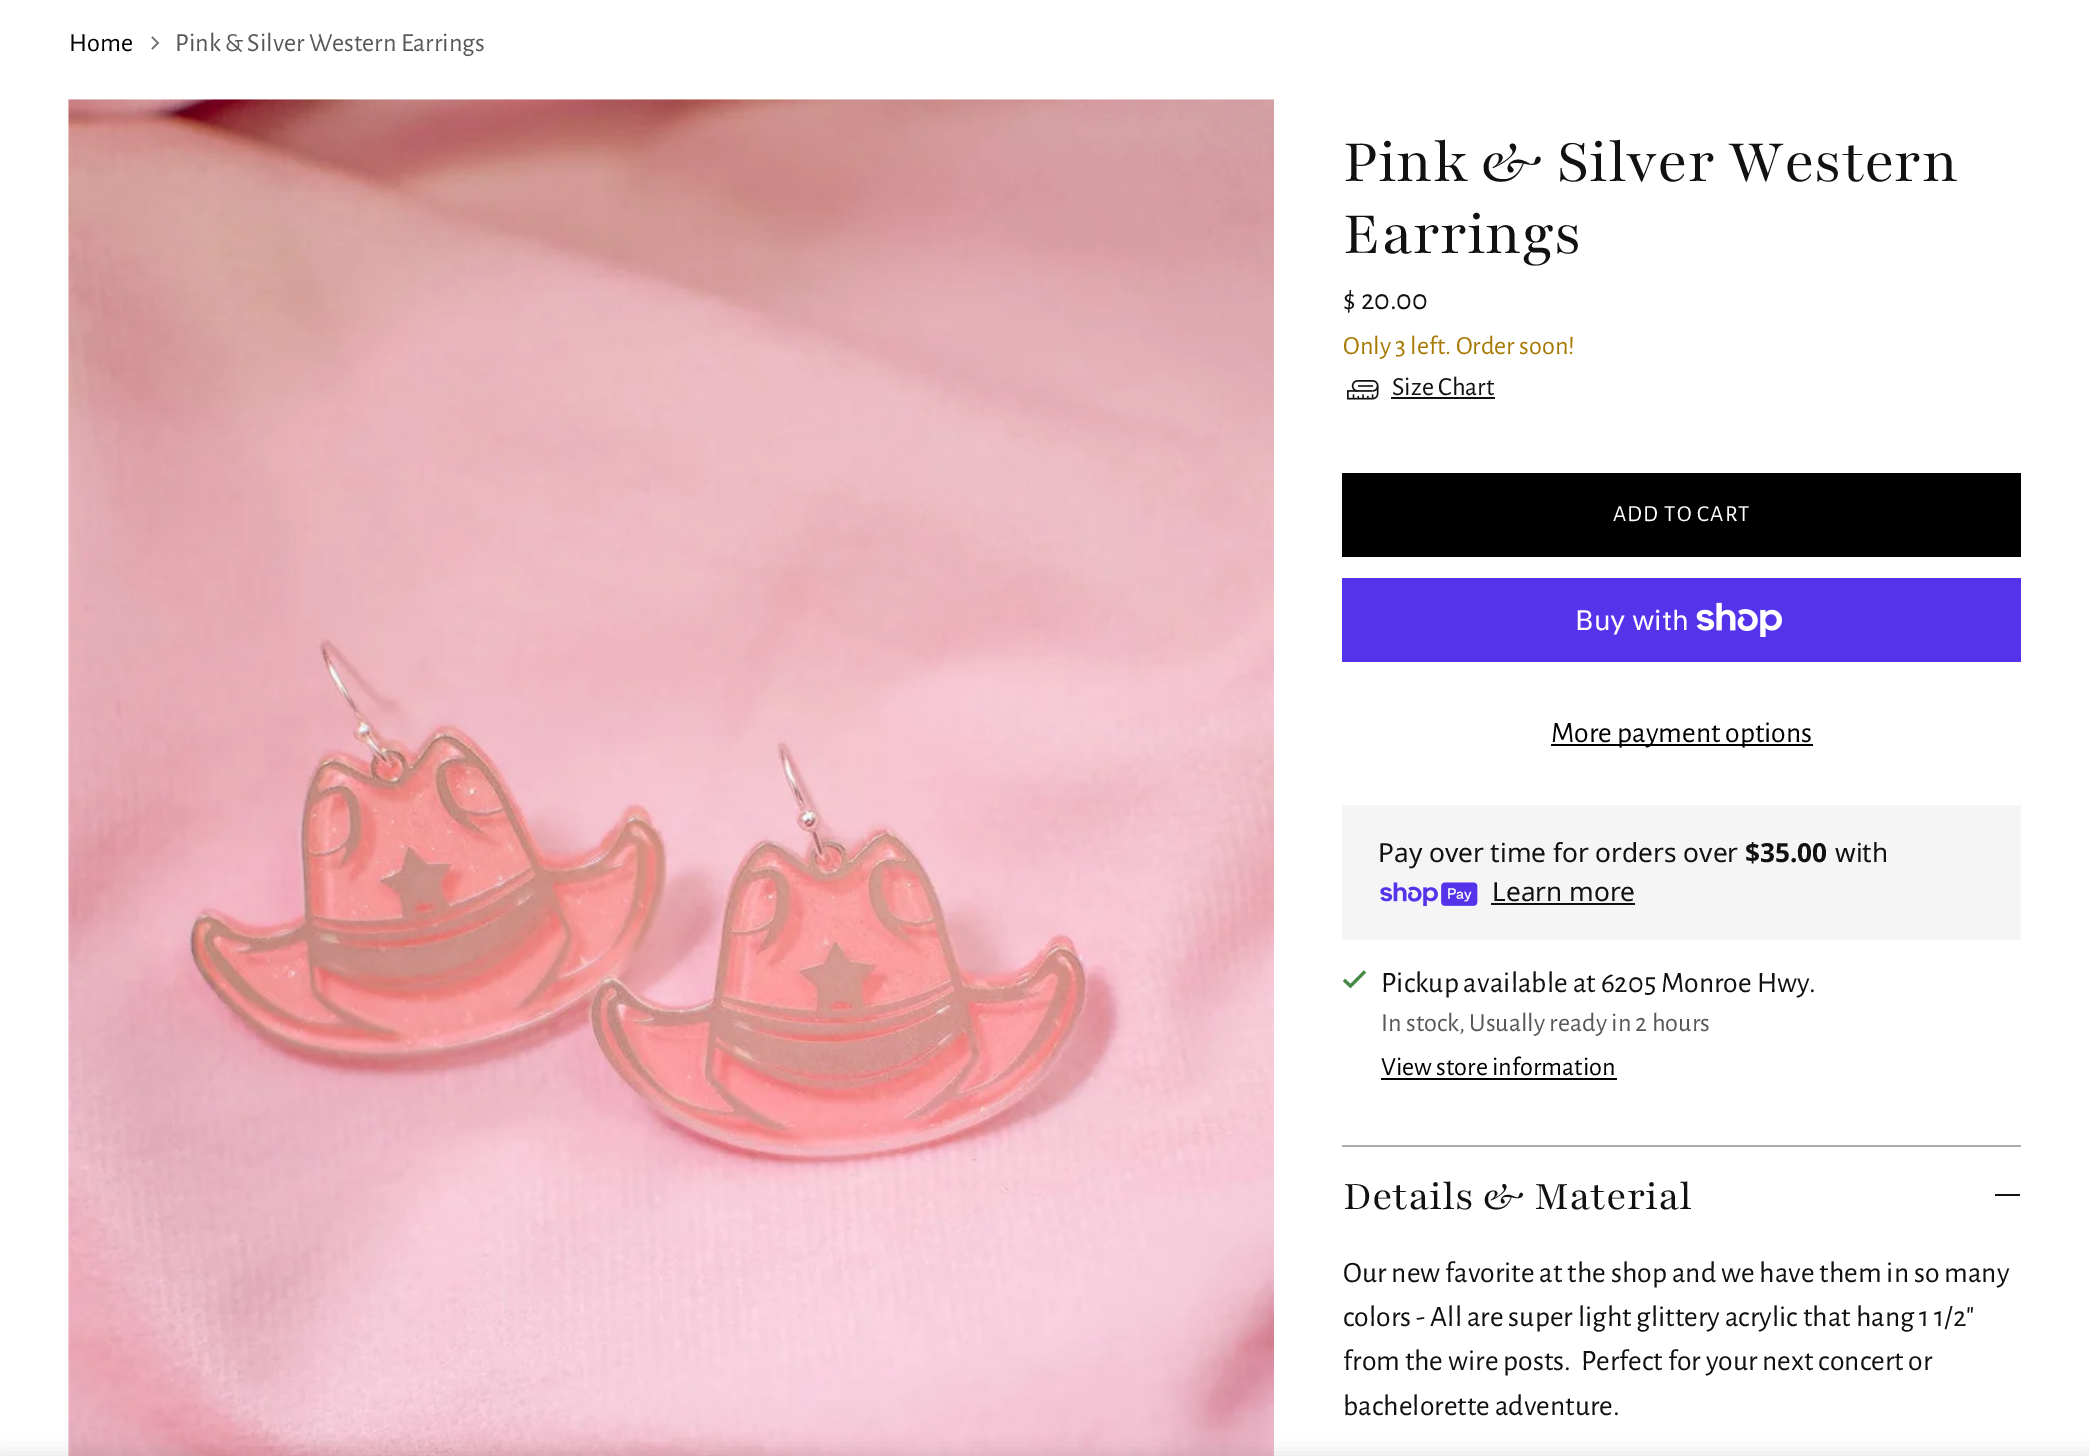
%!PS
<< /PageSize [2089 1456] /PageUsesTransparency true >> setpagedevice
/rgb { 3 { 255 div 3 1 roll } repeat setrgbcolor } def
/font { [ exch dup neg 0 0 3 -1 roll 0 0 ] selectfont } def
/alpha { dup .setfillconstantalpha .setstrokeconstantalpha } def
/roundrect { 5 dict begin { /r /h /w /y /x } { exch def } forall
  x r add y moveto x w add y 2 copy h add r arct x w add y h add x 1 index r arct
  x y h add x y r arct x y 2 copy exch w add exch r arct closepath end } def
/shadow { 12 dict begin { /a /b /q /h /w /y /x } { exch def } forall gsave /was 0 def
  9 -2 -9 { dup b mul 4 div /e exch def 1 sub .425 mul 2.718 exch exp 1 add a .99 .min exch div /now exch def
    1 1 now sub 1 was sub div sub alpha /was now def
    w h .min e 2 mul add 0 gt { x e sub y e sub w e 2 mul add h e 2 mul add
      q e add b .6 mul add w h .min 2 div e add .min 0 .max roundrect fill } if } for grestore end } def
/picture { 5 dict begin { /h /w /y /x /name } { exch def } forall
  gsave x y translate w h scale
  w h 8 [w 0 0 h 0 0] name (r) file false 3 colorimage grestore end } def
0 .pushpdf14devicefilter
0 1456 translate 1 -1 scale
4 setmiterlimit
255 255 255 rgb
0 0 2089 1456 rectfill
112 112 112 rgb
1.6 setlinewidth
152 49 moveto 158 43 lineto 152 37 lineto stroke
(img/1.rgb) 68 99 1206 1357 picture
(img/2.rgb) 1347 380 32 20 picture
[
  [1391 397 104 2 17 17 17]
  [1342 473 679 84 0 0 0]
  [1342 578 679 84 84 51 235]
] { aload pop rgb rectfill } forall
(img/3.rgb) 1696 602 86 35 picture
0 0 0 rgb
1551 744 262 2 rectfill
245 245 245 rgb
1342 805 679 135 rectfill
(img/4.rgb) 1380 882 98 24 picture
17 17 17 rgb
1491 903 144 2 rectfill
71 137 71 rgb
3.1 setlinewidth
1344 980 moveto 1350.5 986 lineto 1365 971.5 lineto stroke
[
  [1381 1078 236 2 0 0 0]
  [1342 1145 679 2 170 170 170]
  [1995 1194 25 2 17 17 17]
] { aload pop rgb rectfill } forall
0 0 0 rgb
0 1453 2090 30 0 9 0.1 shadow
/AlegreyaSans-Regular 26.25 font
69 51 moveto (Home) show
88 88 88 rgb
175 51 moveto (Pink & Silver Western Earrings) show
/Playfair-Regular 65.5 font
17 17 17 rgb
1343 181 moveto (Pink & Silver Western) show
1343 253 moveto (Earrings) show
/AlegreyaSans-Regular 29.6 font
1343 309 moveto ($ 20.00) show
/AlegreyaSans-Regular 26.25 font
167 122 6 rgb
1343 354 moveto (Only 3 left. Order soon!) show
17 17 17 rgb
1392 395 moveto (Size Chart) show
/AlegreyaSans-Regular 23 font
255 255 255 rgb
1613 521 moveto 1.1 0 (ADD TO CART) ashow
/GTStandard-Regular 28 font
1575 630 moveto (Buy with) show
/AlegreyaSans-Regular 29.6 font
0 0 0 rgb
1551 742 moveto (More payment options) show
/NotoSans-Regular 26.25 font
17 17 17 rgb
1378 862 moveto (Pay over time for orders over) show
/NotoSans-Bold 26.25 font
1745 862 moveto ($35.00) show
/NotoSans-Regular 26.25 font
1835 862 moveto (with) show
1492 901 moveto (Learn more) show
/AlegreyaSans-Regular 29.6 font
1381 992 moveto (Pickup available at 6205 Monroe Hwy.) show
/AlegreyaSans-Regular 26.25 font
88 88 88 rgb
1381 1031 moveto (In stock, Usually ready in 2 hours) show
0 0 0 rgb
1381 1075 moveto (View store information) show
/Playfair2-Regular 43.75 font
17 17 17 rgb
1343 1209 moveto (Details & Material) show
/AlegreyaSans-Regular 29.6 font
[
  [(Our new favorite at the shop and we have them in so many) 1343 1282]
  [(colors - All are super light glittery acrylic that hang 1 1/2") 1343 1326]
  [(from the wire posts.  Perfect for your next concert or) 1343 1370]
  [(bachelorette adventure.) 1343 1415]
] { aload pop moveto show } forall
.poppdf14devicefilter showpage
